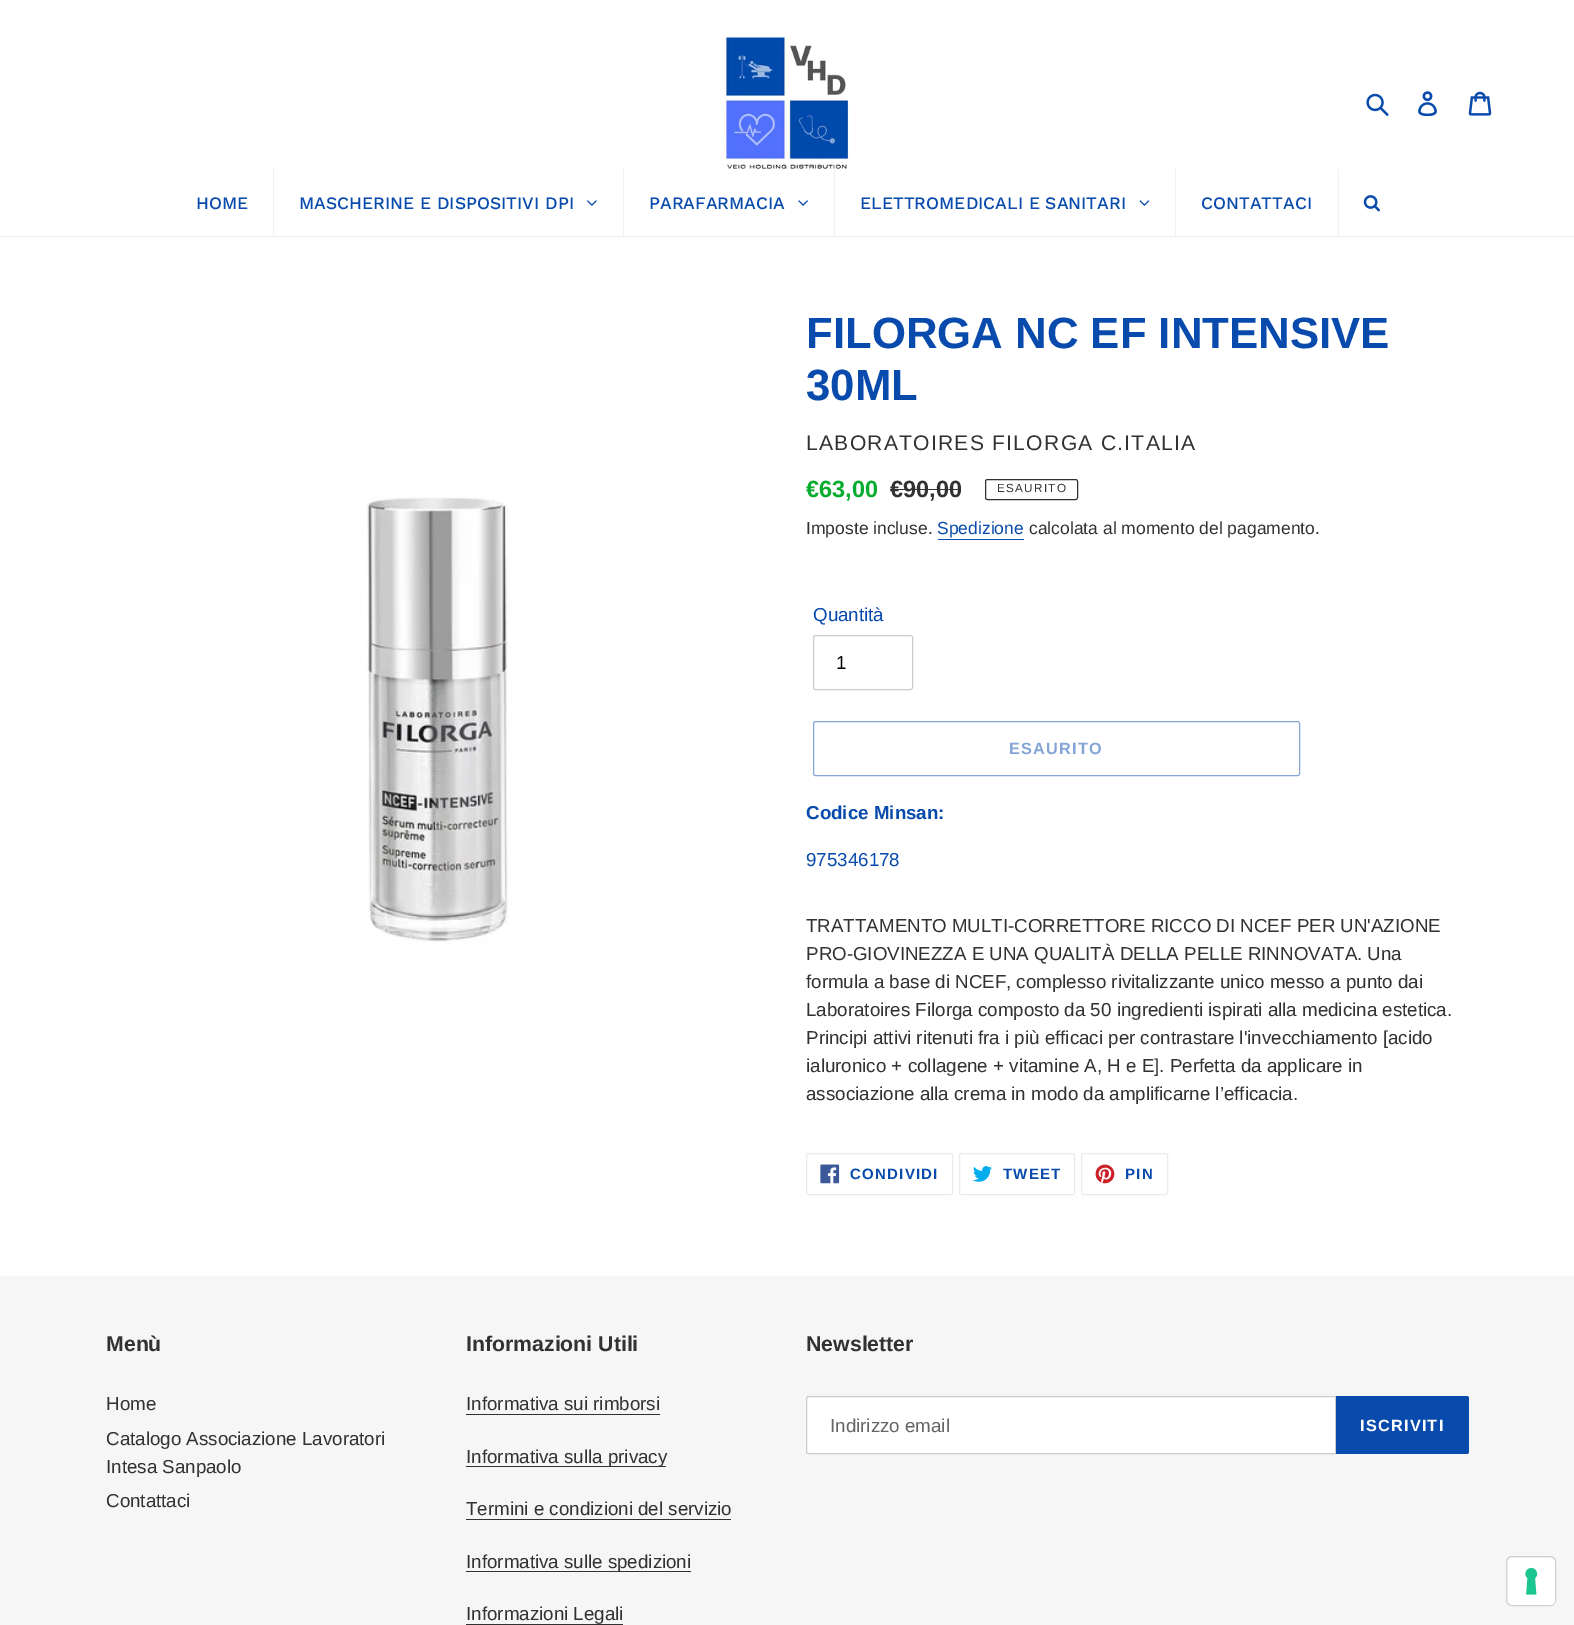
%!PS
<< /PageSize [1574 1625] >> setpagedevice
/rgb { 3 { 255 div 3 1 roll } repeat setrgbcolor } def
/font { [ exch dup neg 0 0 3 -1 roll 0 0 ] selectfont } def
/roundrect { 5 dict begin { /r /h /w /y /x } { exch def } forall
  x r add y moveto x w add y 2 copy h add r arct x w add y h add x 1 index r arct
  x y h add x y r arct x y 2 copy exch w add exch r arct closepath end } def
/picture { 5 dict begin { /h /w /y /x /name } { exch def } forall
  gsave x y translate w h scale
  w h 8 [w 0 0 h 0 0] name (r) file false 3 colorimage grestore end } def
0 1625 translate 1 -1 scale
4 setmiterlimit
255 255 255 rgb
0 0 1574 1625 rectfill
(img/1.rgb) 721 37 129 132 picture
(img/2.rgb) 1366 93 23 23 picture
(img/3.rgb) 1418 91 19 25 picture
(img/4.rgb) 1468 91 24 25 picture
235 235 235 rgb
0 236 1574 1 rectfill
241 241 241 rgb
273 169 1 67 rectfill
(img/5.rgb) 587 200 10 6 picture
623 169 1 67 rectfill
(img/6.rgb) 798 200 10 6 picture
834 169 1 67 rectfill
(img/7.rgb) 1139 200 11 6 picture
1175 169 1 67 rectfill
1338 169 1 67 rectfill
(img/8.rgb) 1363 195 17 17 picture
(img/9.rgb) 367 497 142 447 picture
51 50 50 rgb
890 489 71 1 rectfill
985.5 479.5 92 20 2 roundrect stroke
8 75 172 rgb
938 539 86 1 rectfill
204 204 204 rgb
813.5 635.5 99 54 2 roundrect stroke
132 165 214 rgb
813.5 721.5 486 54 2 roundrect stroke
235 235 235 rgb
806.5 1153.5 146 41 2 roundrect stroke
(img/10.rgb) 820 1164 20 20 picture
959.5 1153.5 115 41 2 roundrect stroke
(img/11.rgb) 973 1166 19 16 picture
1081.5 1153.5 86 41 2 roundrect stroke
(img/12.rgb) 1095 1164 20 20 picture
[
  [0 1276 1574 349 246 246 246]
  [466 1414 194 1 51 50 50]
  [466 1466 200 1 51 50 50]
  [466 1519 265 1 51 50 50]
  [466 1571 225 1 51 50 50]
  [466 1624 157 1 51 50 50]
] { aload pop rgb rectfill } forall
255 255 255 rgb
808.5 1396.5 moveto 1335.5 1396.5 lineto 1335.5 1453.5 lineto 808.5 1453.5 lineto 807.5 1453.5 806.5 1452.5 806.5 1451.5 curveto 806.5 1398.5 lineto 806.5 1397.5 807.5 1396.5 808.5 1396.5 curveto closepath gsave fill grestore
204 204 204 rgb
stroke
8 75 172 rgb
1336 1396 moveto 1466.5 1396 lineto 1468 1396 1469 1397 1469 1398.5 curveto 1469 1451.5 lineto 1469 1453 1468 1454 1466.5 1454 curveto 1336 1454 lineto closepath fill
209 209 209 rgb
1506.5 1556.5 49 49 5.5 roundrect stroke
255 255 255 rgb
1508 1558 47 47 5 roundrect fill
(img/13.rgb) 1525 1567 13 28 picture
/WorkSans-Medium 17.5 font
8 75 172 rgb
[
  [(HOME) 196 209]
  [(MASCHERINE E DISPOSITIVI DPI) 299 209]
  [(PARAFARMACIA) 649 209]
  [(ELETTROMEDICALI E SANITARI) 860 209]
  [(CONTATTACI) 1201 209]
] { aload pop moveto show } forall
/LiberationSans-Bold 43.75 font
806 348 moveto (FILORGA NC EF INTENSIVE) show
806 400 moveto (30ML) show
/LiberationSans-Regular 21.1 font
51 50 50 rgb
806 450 moveto 1.25 0 (LABORATOIRES FILORGA C.ITALIA) ashow
/LiberationSans-Bold 23.5 font
8 172 47 rgb
806 497 moveto (€63,00) show
51 50 50 rgb
890 497 moveto (€90,00) show
/LiberationSans-Regular 11.75 font
997 492 moveto 1.25 0 (ESAURITO) ashow
/LiberationSans-Regular 17.5 font
806 534 moveto (Imposte incluse.) show
8 75 172 rgb
937 534 moveto (Spedizione) show
51 50 50 rgb
1029 534 moveto (calcolata al momento del pagamento.) show
/LiberationSans-Regular 18.75 font
8 75 172 rgb
813 621 moveto (Quantità) show
0 0 0 rgb
836 669 moveto (1) show
/LiberationSans-Bold 16.25 font
132 165 214 rgb
1009 754 moveto 1.25 0 (ESAURITO) ashow
/LiberationSans-Bold 18.75 font
8 75 172 rgb
806 819 moveto (Codice Minsan:) show
/LiberationSans-Regular 18.75 font
806 866 moveto (975346178) show
51 50 50 rgb
[
  [(TRATTAMENTO MULTI-CORRETTORE RICCO DI NCEF PER UN'AZIONE) 806 932]
  [(PRO-GIOVINEZZA E UNA QUALITÀ DELLA PELLE RINNOVATA. Una) 806 960]
  [(formula a base di NCEF, complesso rivitalizzante unico messo a punto dai) 806 988]
  [(Laboratoires Filorga composto da 50 ingredienti ispirati alla medicina estetica.) 806 1016]
  [(Principi attivi ritenuti fra i più efficaci per contrastare l'invecchiamento [acido) 806 1044]
  [(ialuronico + collagene + vitamine A, H e E]. Perfetta da applicare in) 806 1072]
  [(associazione alla crema in modo da amplificarne l’efficacia.) 806 1100]
] { aload pop moveto show } forall
/LiberationSans-Bold 15 font
8 75 172 rgb
850 1179 moveto 1.25 0 (CONDIVIDI) ashow
1003 1179 moveto 1.25 0 (TWEET) ashow
1125 1179 moveto 1.25 0 (PIN) ashow
/LiberationSans-Bold 21.25 font
51 50 50 rgb
106 1351 moveto (Menù) show
/LiberationSans-Regular 18.75 font
[
  [(Home) 106 1410]
  [(Catalogo Associazione Lavoratori) 106 1445]
  [(Intesa Sanpaolo) 106 1473]
  [(Contattaci) 106 1507]
] { aload pop moveto show } forall
/LiberationSans-Bold 21.25 font
466 1351 moveto (Informazioni Utili) show
/LiberationSans-Regular 18.75 font
[
  [(Informativa sui rimborsi) 466 1410]
  [(Informativa sulla privacy) 466 1463]
  [(Termini e condizioni del servizio) 466 1515]
  [(Informativa sulle spedizioni) 466 1568]
  [(Informazioni Legali) 466 1620]
] { aload pop moveto show } forall
/LiberationSans-Bold 21.25 font
806 1351 moveto (Newsletter) show
/LiberationSans-Regular 18.75 font
102 102 102 rgb
830 1432 moveto (Indirizzo email) show
/LiberationSans-Bold 16.25 font
255 255 255 rgb
1360 1431 moveto 1.25 0 (ISCRIVITI) ashow
showpage
